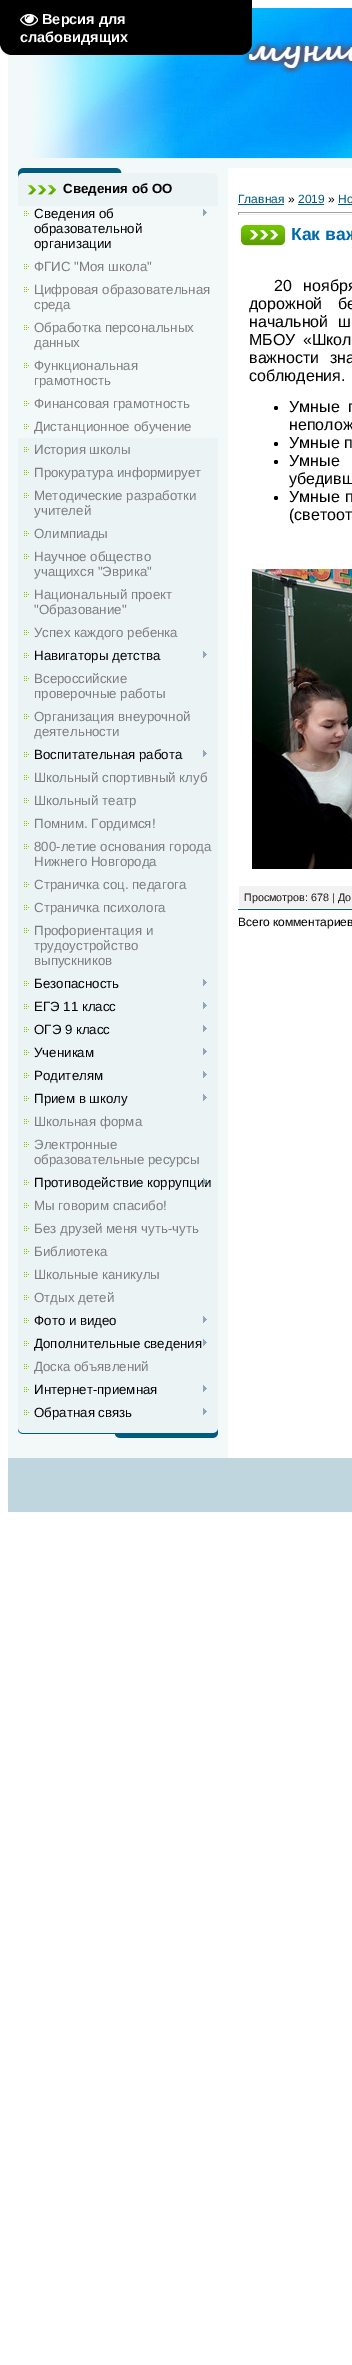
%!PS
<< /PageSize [352 2365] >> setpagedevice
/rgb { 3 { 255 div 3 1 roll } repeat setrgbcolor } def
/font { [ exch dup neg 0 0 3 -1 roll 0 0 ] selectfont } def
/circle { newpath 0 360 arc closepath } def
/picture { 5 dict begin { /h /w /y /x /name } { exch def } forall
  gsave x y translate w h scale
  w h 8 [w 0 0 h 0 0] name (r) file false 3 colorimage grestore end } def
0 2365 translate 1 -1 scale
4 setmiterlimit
255 255 255 rgb
0 0 352 2365 rectfill
243 248 249 rgb
8 54 344 1404 rectfill
(img/2.rgb) 30 8 322 150 picture
0 0 0 rgb
0 0 moveto 252 0 lineto 252 43 lineto 252 49.5 246.5 55 240 55 curveto 12 55 lineto 5.5 55 0 49.5 0 43 curveto closepath fill
(img/1.rgb) 20 13 18 13 picture
(img/3.rgb) 18 168 200 38 picture
(img/4.rgb) 18 438 200 1000 picture
(img/5.rgb) 24 211 5 5 picture
(img/6.rgb) 203 209 4 7 picture
(img/5.rgb) 24 264 5 5 picture
(img/5.rgb) 24 287 5 5 picture
(img/5.rgb) 24 325 5 5 picture
(img/5.rgb) 24 363 5 5 picture
(img/5.rgb) 24 401 5 5 picture
(img/5.rgb) 24 424 5 5 picture
(img/7.rgb) 24 447 5 5 picture
(img/7.rgb) 24 470 5 5 picture
(img/7.rgb) 24 493 5 5 picture
(img/7.rgb) 24 531 5 5 picture
(img/7.rgb) 24 554 5 5 picture
(img/7.rgb) 24 592 5 5 picture
(img/7.rgb) 24 630 5 5 picture
(img/7.rgb) 24 653 5 5 picture
(img/8.rgb) 203 651 4 7 picture
(img/7.rgb) 24 676 5 5 picture
(img/7.rgb) 24 714 5 5 picture
(img/7.rgb) 24 752 5 5 picture
(img/8.rgb) 203 750 4 7 picture
(img/7.rgb) 24 775 5 5 picture
(img/7.rgb) 24 798 5 5 picture
(img/7.rgb) 24 821 5 5 picture
(img/7.rgb) 24 844 5 5 picture
(img/7.rgb) 24 882 5 5 picture
(img/7.rgb) 24 905 5 5 picture
(img/7.rgb) 24 928 5 5 picture
(img/7.rgb) 24 981 5 5 picture
(img/8.rgb) 203 979 4 7 picture
(img/7.rgb) 24 1004 5 5 picture
(img/8.rgb) 203 1002 4 7 picture
(img/7.rgb) 24 1027 5 5 picture
(img/8.rgb) 203 1025 4 7 picture
(img/7.rgb) 24 1050 5 5 picture
(img/8.rgb) 203 1048 4 7 picture
(img/7.rgb) 24 1073 5 5 picture
(img/8.rgb) 203 1071 4 7 picture
(img/7.rgb) 24 1096 5 5 picture
(img/8.rgb) 203 1094 4 7 picture
(img/7.rgb) 24 1119 5 5 picture
(img/7.rgb) 24 1142 5 5 picture
(img/7.rgb) 24 1180 5 5 picture
(img/7.rgb) 24 1203 5 5 picture
(img/7.rgb) 24 1226 5 5 picture
(img/7.rgb) 24 1249 5 5 picture
(img/7.rgb) 24 1272 5 5 picture
(img/7.rgb) 24 1295 5 5 picture
(img/7.rgb) 24 1318 5 5 picture
(img/8.rgb) 203 1316 4 7 picture
(img/7.rgb) 24 1341 5 5 picture
(img/8.rgb) 203 1339 4 7 picture
(img/7.rgb) 24 1364 5 5 picture
(img/7.rgb) 24 1387 5 5 picture
(img/8.rgb) 203 1385 4 7 picture
(img/7.rgb) 24 1410 5 5 picture
(img/8.rgb) 203 1408 4 7 picture
[
  [228 168 124 1290 255 255 255]
  [238 204 46 1 0 91 127]
  [298 204 26 1 0 91 127]
  [338 204 14 1 0 91 127]
  [238 212 114 1 159 159 159]
  [238 214 114 1 238 238 238]
  [238 212 1 3 159 159 159]
  [238 909 114 1 0 91 127]
] { aload pop rgb rectfill } forall
(img/10.rgb) 241 225 44 21 picture
0 0 0 rgb
276 408 2 circle fill
276 444 2 circle fill
276 462 2 circle fill
276 498 2 circle fill
(img/11.rgb) 252 569 100 300 picture
242 242 242 rgb
239 886 113 22 rectfill
191 214 223 rgb
8 1458 344 54 rectfill
/LiberationSans-Bold 14.5 font
255 255 255 rgb
42 24 moveto (Версия для) show
20 42 moveto (слабовидящих) show
/LiberationSans-Bold 13.3 font
0 0 0 rgb
63 193 moveto (Сведения об ОО) show
/LiberationSans-Regular 13.3 font
[
  [(Сведения об) 34 218]
  [(образовательной) 34 233]
  [(организации) 34 248]
] { aload pop moveto show } forall
125 125 125 rgb
[
  [(ФГИС "Моя школа") 34 271]
  [(Цифровая образовательная) 34 294]
  [(среда) 34 309]
  [(Обработка персональных) 34 332]
  [(данных) 34 347]
  [(Функциональная) 34 370]
  [(грамотность) 34 385]
  [(Финансовая грамотность) 34 408]
  [(Дистанционное обучение) 34 431]
  [(История школы) 34 454]
  [(Прокуратура информирует) 34 477]
  [(Методические разработки) 34 500]
  [(учителей) 34 515]
  [(Олимпиады) 34 538]
  [(Научное общество) 34 561]
  [(учащихся "Эврика") 34 576]
  [(Национальный проект) 34 599]
  [("Образование") 34 614]
  [(Успех каждого ребенка) 34 637]
] { aload pop moveto show } forall
0 0 0 rgb
34 660 moveto (Навигаторы детства) show
125 125 125 rgb
[
  [(Всероссийские) 34 683]
  [(проверочные работы) 34 698]
  [(Организация внеурочной) 34 721]
  [(деятельности) 34 736]
] { aload pop moveto show } forall
0 0 0 rgb
34 759 moveto (Воспитательная работа) show
125 125 125 rgb
[
  [(Школьный спортивный клуб) 34 782]
  [(Школьный театр) 34 805]
  [(Помним. Гордимся!) 34 828]
  [(800-летие основания города) 34 851]
  [(Нижнего Новгорода) 34 866]
  [(Страничка соц. педагога) 34 889]
  [(Страничка психолога) 34 912]
  [(Профориентация и) 34 935]
  [(трудоустройство) 34 950]
  [(выпускников) 34 965]
] { aload pop moveto show } forall
0 0 0 rgb
[
  [(Безопасность) 34 988]
  [(ЕГЭ 11 класс) 34 1011]
  [(ОГЭ 9 класс) 34 1034]
  [(Ученикам) 34 1057]
  [(Родителям) 34 1080]
  [(Прием в школу) 34 1103]
] { aload pop moveto show } forall
125 125 125 rgb
[
  [(Школьная форма) 34 1126]
  [(Электронные) 34 1149]
  [(образовательные ресурсы) 34 1164]
] { aload pop moveto show } forall
0 0 0 rgb
34 1187 moveto (Противодействие коррупции) show
(img/9.rgb) 203 1178 4 7 picture
125 125 125 rgb
[
  [(Мы говорим спасибо!) 34 1210]
  [(Без друзей меня чуть-чуть) 34 1233]
  [(Библиотека) 34 1256]
  [(Школьные каникулы) 34 1279]
  [(Отдых детей) 34 1302]
] { aload pop moveto show } forall
0 0 0 rgb
34 1325 moveto (Фото и видео) show
34 1348 moveto (Дополнительные сведения) show
125 125 125 rgb
34 1371 moveto (Доска объявлений) show
0 0 0 rgb
34 1394 moveto (Интернет-приемная) show
34 1417 moveto (Обратная связь) show
/LiberationSans-Regular 12 font
0 91 127 rgb
238 203 moveto (Главная) show
0 0 0 rgb
288 203 moveto (») show
0 91 127 rgb
298 203 moveto (2019) show
0 0 0 rgb
328 203 moveto (») show
0 91 127 rgb
338 203 moveto (Но) show
/LiberationSans-Bold 17.5 font
0 105 169 rgb
291 240 moveto (Как важ) show
/LiberationSans-Regular 16 font
0 0 0 rgb
274 291 moveto 7 0 32 (20 ноября) widthshow
249 309 moveto 11 0 32 (дорожной бе) widthshow
249 327 moveto 5 0 32 (начальной ш) widthshow
249 345 moveto 3 0 32 (МБОУ «Школ) widthshow
249 363 moveto 6 0 32 (важности зна) widthshow
249 381 moveto (соблюдения.) show
289 412 moveto 4 0 32 (Умные п) widthshow
289 430 moveto (неполож) show
289 448 moveto (Умные п) show
289 466 moveto 12 0 32 (Умные) widthshow
289 484 moveto (убедивш) show
289 502 moveto 1 0 32 (Умные п) widthshow
289 520 moveto (\(светоот) show
/LiberationSans-Regular 10.75 font
26 26 26 rgb
244 901 moveto (Просмотров: 678 | До) show
/LiberationSans-Regular 12 font
0 0 0 rgb
238 926 moveto (Всего комментариев) show
showpage
